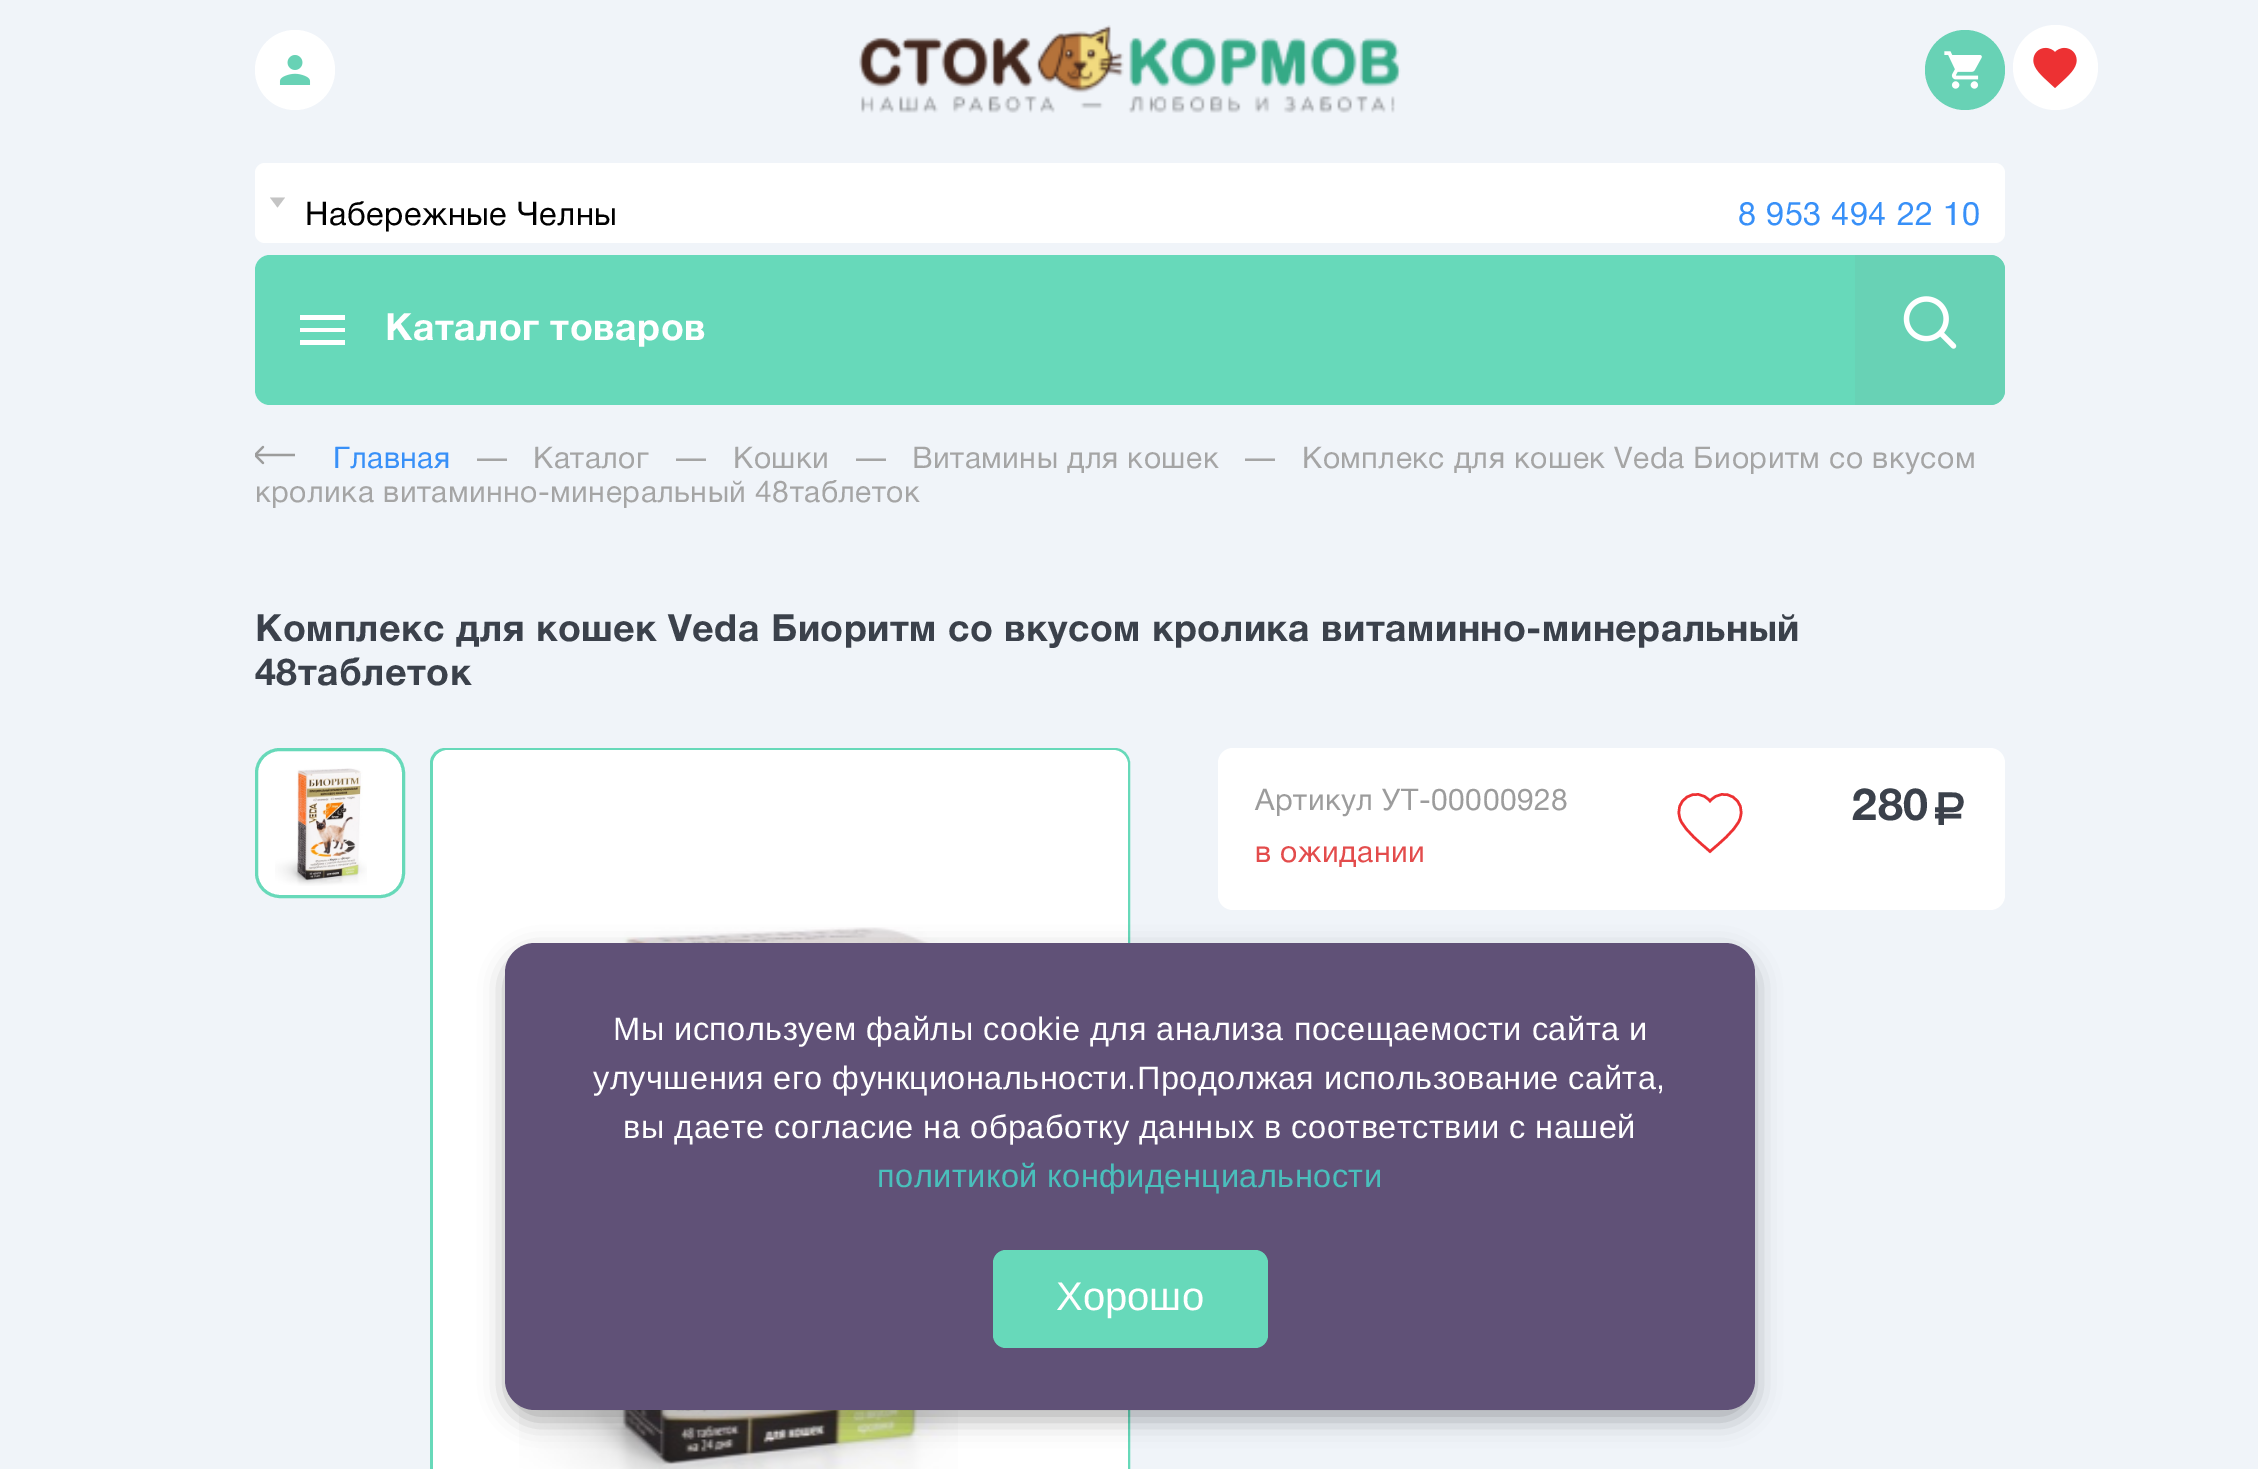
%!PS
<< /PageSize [2258 1469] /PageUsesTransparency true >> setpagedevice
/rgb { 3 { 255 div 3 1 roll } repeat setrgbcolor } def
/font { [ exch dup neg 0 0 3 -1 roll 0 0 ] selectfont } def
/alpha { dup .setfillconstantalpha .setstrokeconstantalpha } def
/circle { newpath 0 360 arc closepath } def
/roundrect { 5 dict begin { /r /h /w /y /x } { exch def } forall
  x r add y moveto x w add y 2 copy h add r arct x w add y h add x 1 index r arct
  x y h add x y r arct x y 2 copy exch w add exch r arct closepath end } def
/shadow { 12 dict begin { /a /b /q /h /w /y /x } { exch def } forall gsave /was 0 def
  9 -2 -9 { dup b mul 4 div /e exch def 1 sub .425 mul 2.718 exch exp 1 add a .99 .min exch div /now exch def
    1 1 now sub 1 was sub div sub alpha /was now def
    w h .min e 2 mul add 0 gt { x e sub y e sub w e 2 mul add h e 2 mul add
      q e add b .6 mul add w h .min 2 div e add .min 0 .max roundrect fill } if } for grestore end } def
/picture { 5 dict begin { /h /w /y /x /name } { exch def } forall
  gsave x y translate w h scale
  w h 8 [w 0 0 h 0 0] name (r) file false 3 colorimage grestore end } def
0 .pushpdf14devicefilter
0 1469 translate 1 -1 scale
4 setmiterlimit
240 244 249 rgb
0 0 2258 1469 rectfill
255 255 255 rgb
295 70 40 circle fill
(img/1.rgb) 279 55 32 30 picture
(img/2.rgb) 859 25 542 88 picture
104 210 181 rgb
1965 70 40 circle fill
(img/3.rgb) 1944 51 38 38 picture
255 255 255 rgb
2055.5 67.5 42.5 circle fill
(img/4.rgb) 2033 47 44 41 picture
255 163 1750 80 10 roundrect fill
196 196 196 rgb
270 197.5 moveto 285 197.5 lineto 277.5 207.5 lineto closepath fill
103 217 186 rgb
255 255 1750 150 15 roundrect fill
255 255 255 rgb
300 315 moveto 345 315 lineto 345 320 lineto 300 320 lineto closepath 300 332 moveto 300 328 lineto 345 328 lineto 345 332 lineto closepath 300 345 moveto 300 340 lineto 345 340 lineto 345 345 lineto closepath fill
104 210 181 rgb
1855 255 moveto 1990 255 lineto 1998.5 255 2005 261.5 2005 270 curveto 2005 390 lineto 2005 398.5 1998.5 405 1990 405 curveto 1855 405 lineto closepath fill
(img/5.rgb) 1903 296 54 53 picture
(img/6.rgb) 255 445 40 20 picture
255 255 255 rgb
256.5 749.5 147 147 23.5 roundrect gsave fill grestore
103 217 185 rgb
3 setlinewidth
stroke
(img/7.rgb) 275 768 92 118 picture
255 255 255 rgb
431.5 749.5 697 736 13.5 roundrect gsave fill grestore
103 217 185 rgb
stroke
255 255 255 rgb
433 750 695 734 15 roundrect fill
(img/8.rgb) 519 927 439 542 picture
1218 748 787 162 15 roundrect fill
237 49 51 rgb
2.5 setlinewidth
1710 851.5 moveto 1700.5 843 1686 832 1680.5 820 curveto 1672 800 1696.5 785 1710 801 curveto 1723.5 785 1748 800 1739.5 820 curveto 1734 832 1719.5 843 1710 851.5 curveto closepath stroke
0 0 0 rgb
505 953 1250 467 30 12.5 0.3 shadow
96 81 119 rgb
505 943 1250 467 30 roundrect fill
103 217 186 rgb
993 1250 275 98 13 roundrect fill
/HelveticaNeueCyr-Regular 32.5 font
0 0 0 rgb
305 225 moveto 0.5 0 (Набережные Челны) ashow
56 144 248 rgb
1738 225 moveto 0.5 0 (8 953 494 22 10) ashow
/HelveticaNeueCyr-Bold 37.5 font
255 255 255 rgb
385 340 moveto 0.5 0 (Каталог товаров) ashow
/HelveticaNeueCyr-Regular 30 font
56 144 248 rgb
333 468 moveto 0.5 0 (Главная) ashow
165 165 165 rgb
477 468 moveto 0.5 0 (—) ashow
533 468 moveto 0.5 0 (Каталог) ashow
676 468 moveto 0.5 0 (—) ashow
733 468 moveto 0.5 0 (Кошки) ashow
856 468 moveto 0.5 0 (—) ashow
912 468 moveto 0.5 0 (Витамины для кошек) ashow
1245 468 moveto 0.5 0 (—) ashow
1302 468 moveto 0.5 0 (Комплекс для кошек Veda Биоритм со вкусом) ashow
255 502 moveto 0.5 0 (кролика витаминно-минеральный 48таблеток) ashow
/HelveticaNeueCyr-Bold 37.5 font
59 65 75 rgb
255 641 moveto 0.5 0 (Комплекс для кошек Veda Биоритм со вкусом кролика витаминно-минеральный) ashow
255 685 moveto 0.5 0 (48таблеток) ashow
/HelveticaNeueCyr-Regular 30 font
156 156 156 rgb
1255 810 moveto 0.5 0 (Артикул УТ-00000928) ashow
227 76 76 rgb
1255 862 moveto 0.5 0 (в ожидании) ashow
/HelveticaNeueCyr-Bold 45 font
59 65 75 rgb
1852 820 moveto 0.5 0 (280) ashow
/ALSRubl-Bold 45 font
1928 825 moveto 0.5 0 (a) ashow
/LiberationSans-Regular 32.5 font
255 255 255 rgb
613 1040 moveto 0.5 0 (Мы используем файлы cookie для анализа посещаемости сайта и) ashow
593 1089 moveto 0.5 0 (улучшения его функциональности.Продолжая использование сайта,) ashow
623 1138 moveto 0.5 0 (вы даете согласие на обработку данных в соответствии с нашей) ashow
74 191 188 rgb
877 1187 moveto 0.5 0 (политикой конфиденциальности) ashow
/LiberationSans-Regular 40 font
255 255 255 rgb
1056 1310 moveto (Хорошо) show
.poppdf14devicefilter showpage
